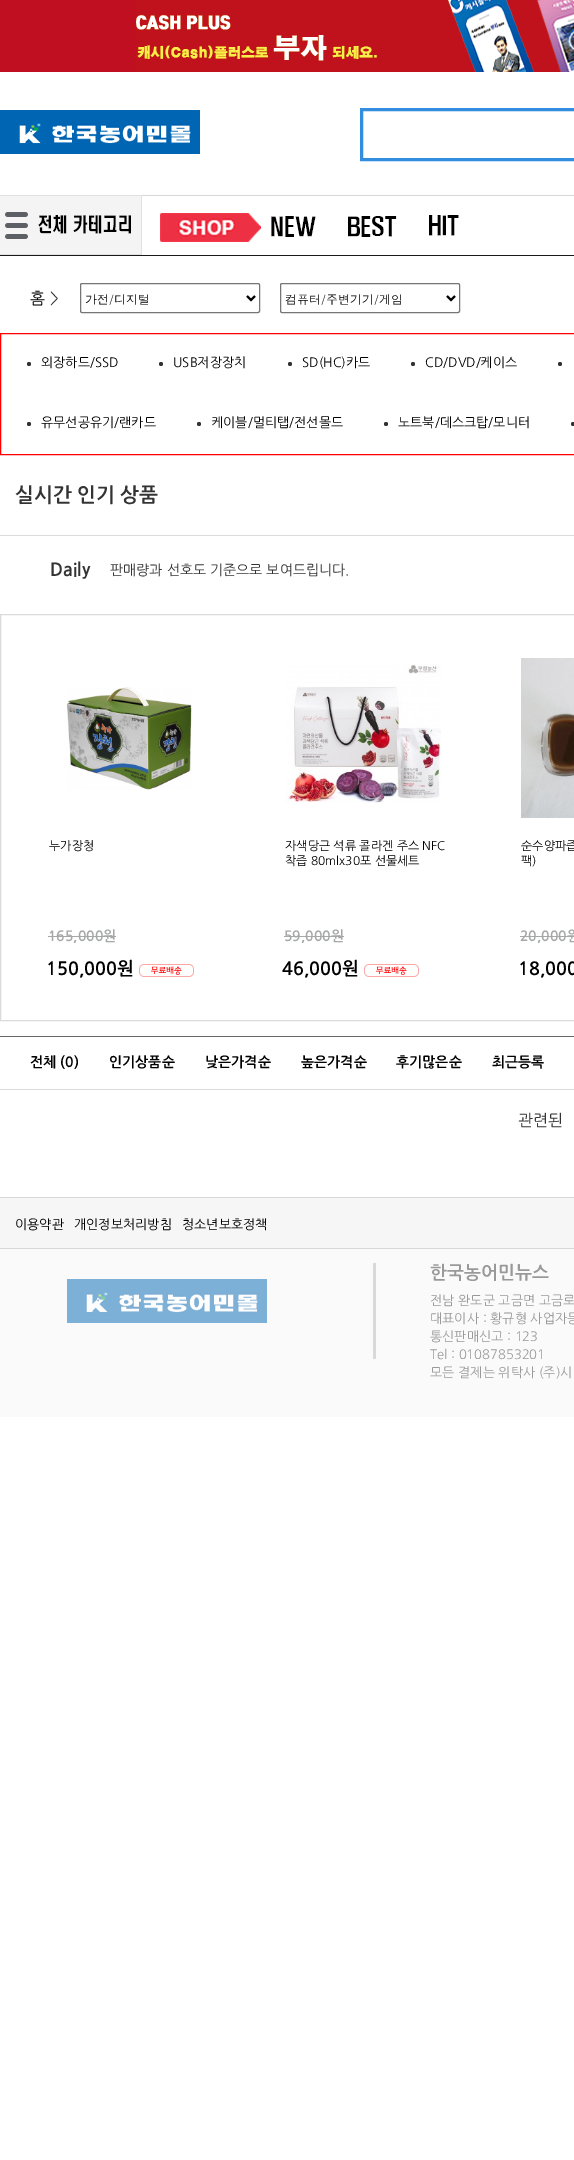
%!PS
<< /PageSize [574 2160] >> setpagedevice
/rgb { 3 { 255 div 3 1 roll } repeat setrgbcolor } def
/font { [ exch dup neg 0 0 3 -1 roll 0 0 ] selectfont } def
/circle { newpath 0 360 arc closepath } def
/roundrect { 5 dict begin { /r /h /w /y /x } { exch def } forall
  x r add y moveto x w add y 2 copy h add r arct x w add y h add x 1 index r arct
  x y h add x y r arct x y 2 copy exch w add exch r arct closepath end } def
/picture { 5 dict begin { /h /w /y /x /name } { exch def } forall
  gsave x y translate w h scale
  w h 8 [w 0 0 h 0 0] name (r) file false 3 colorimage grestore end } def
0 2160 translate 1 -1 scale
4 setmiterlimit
255 255 255 rgb
0 0 574 2160 rectfill
191 15 32 rgb
0 0 136 72 rectfill
(img/1.rgb) 136 0 438 72 picture
(img/2.rgb) 0 110 200 44 picture
51 142 224 rgb
3 setlinewidth
361.5 109.5 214 50 rectstroke
216 216 216 rgb
142 195 432 1 rectfill
22 24 25 rgb
0 255 574 1 rectfill
(img/3.rgb) 0 195 142 60 picture
(img/4.rgb) 160 213 101 29 picture
(img/5.rgb) 271 216 45 21 picture
(img/6.rgb) 348 216 49 21 picture
(img/7.rgb) 429 215 30 21 picture
118 118 118 rgb
1 setlinewidth
80.5 283.5 179 29 1.5 roundrect stroke
0 0 0 rgb
2 setlinewidth
247 296 moveto 251 300 lineto 255 296 lineto stroke
118 118 118 rgb
1 setlinewidth
280.5 283.5 179 29 1.5 roundrect stroke
0 0 0 rgb
2 setlinewidth
447 296 moveto 451 300 lineto 455 296 lineto stroke
255 0 0 rgb
1 setlinewidth
0.5 333.5 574 121 rectstroke
51 51 51 rgb
29 364 2 circle fill
161 364 2 circle fill
290 364 2 circle fill
413 364 2 circle fill
560 364 2 circle fill
29 424 2 circle fill
199 424 2 circle fill
386 424 2 circle fill
573 424 2 circle fill
219 219 219 rgb
0 535 574 1 rectfill
0.5 614.5 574 406 rectstroke
(img/8.rgb) 66 687 126 103 picture
166 167 168 rgb
48 936 68 1 rectfill
(img/9.rgb) 139 964 55 13 picture
(img/10.rgb) 285 664 156 139 picture
284 936 60 1 rectfill
(img/9.rgb) 364 964 55 13 picture
(img/11.rgb) 521 658 53 160 picture
[
  [520 936 54 1 166 167 168]
  [0 1036 574 1 103 103 103]
  [0 1089 574 1 219 219 219]
  [0 1198 574 50 246 246 246]
  [0 1197 574 1 216 216 216]
  [0 1248 574 1 216 216 216]
  [0 1249 574 168 250 250 250]
] { aload pop rgb rectfill } forall
(img/12.rgb) 67 1279 200 44 picture
217 217 217 rgb
373 1263 3 96 rectfill
/NanumGothic-Regular 16 font
0 0 0 rgb
30 304 moveto (홈) show
51 51 51 rgb
50 304 moveto (>) show
/Dotum-Regular 12 font
0 0 0 rgb
85 304 moveto (가전/디지털) show
285 304 moveto (컴퓨터/주변기기/게임) show
/NanumGothic-Regular 13 font
[
  [(외장하드/SSD) 41 367]
  [(USB저장장치) 173 367]
  [(SD\(HC\)카드) 302 367]
  [(CD/DVD/케이스) 425 367]
  [(유무선공유기/랜카드) 41 427]
  [(케이블/멀티탭/전선몰드) 211 427]
  [(노트북/데스크탑/모니터) 398 427]
] { aload pop moveto show } forall
/NanumGothic-Bold 20 font
51 51 51 rgb
15 502 moveto (실시간 인기 상품) show
/NanumGothic-Bold 18 font
50 576 moveto (Daily) show
/NanumGothic-Regular 14 font
110 575 moveto (판매량과 선호도 기준으로 보여드립니다.) show
/NanumGothic-Regular 12 font
0 0 0 rgb
49 850 moveto (누가장청) show
/NanumGothic-Bold 14 font
166 167 168 rgb
48 941 moveto (165,000원) show
/NanumGothic-Bold 18 font
0 0 0 rgb
46 975 moveto (150,000원) show
/NanumGothic-Regular 12 font
285 850 moveto (자색당근 석류 콜라겐 주스 NFC) show
285 865 moveto (착즙 80mlx30포 선물세트) show
/NanumGothic-Bold 14 font
166 167 168 rgb
284 941 moveto (59,000원) show
/NanumGothic-Bold 18 font
0 0 0 rgb
282 975 moveto (46,000원) show
/NanumGothic-Regular 12 font
521 850 moveto (순수양파즙) show
521 865 moveto (팩\)) show
/NanumGothic-Bold 14 font
166 167 168 rgb
520 941 moveto (20,000원) show
/NanumGothic-Bold 18 font
0 0 0 rgb
518 975 moveto (18,000) show
/NanumGothic-Bold 14 font
[
  [(전체 \(0\)) 30 1067]
  [(인기상품순) 109 1067]
  [(낮은가격순) 205 1067]
  [(높은가격순) 301 1067]
  [(후기많은순) 396 1067]
  [(최근등록) 492 1067]
] { aload pop moveto show } forall
/NanumGothic-Regular 16 font
51 51 51 rgb
518 1126 moveto (관련된) show
/NanumGothic-Regular 13 font
0 0 0 rgb
[
  [(이용약관) 15 1229]
  [(개인정보처리방침) 74 1229]
  [(청소년보호정책) 182 1229]
] { aload pop moveto show } forall
/NanumGothic-Bold 18 font
153 153 153 rgb
430 1279 moveto (한국농어민뉴스) show
/NanumGothic-Regular 13 font
[
  [(전남 완도군 고금면 고금로) 430 1305]
  [(대표이사 : 황규형 사업자등) 430 1323]
  [(통신판매신고 : 123) 430 1341]
  [(Tel : 01087853201) 430 1359]
  [(모든 결제는 위탁사 \(주\)시) 430 1377]
] { aload pop moveto show } forall
showpage
